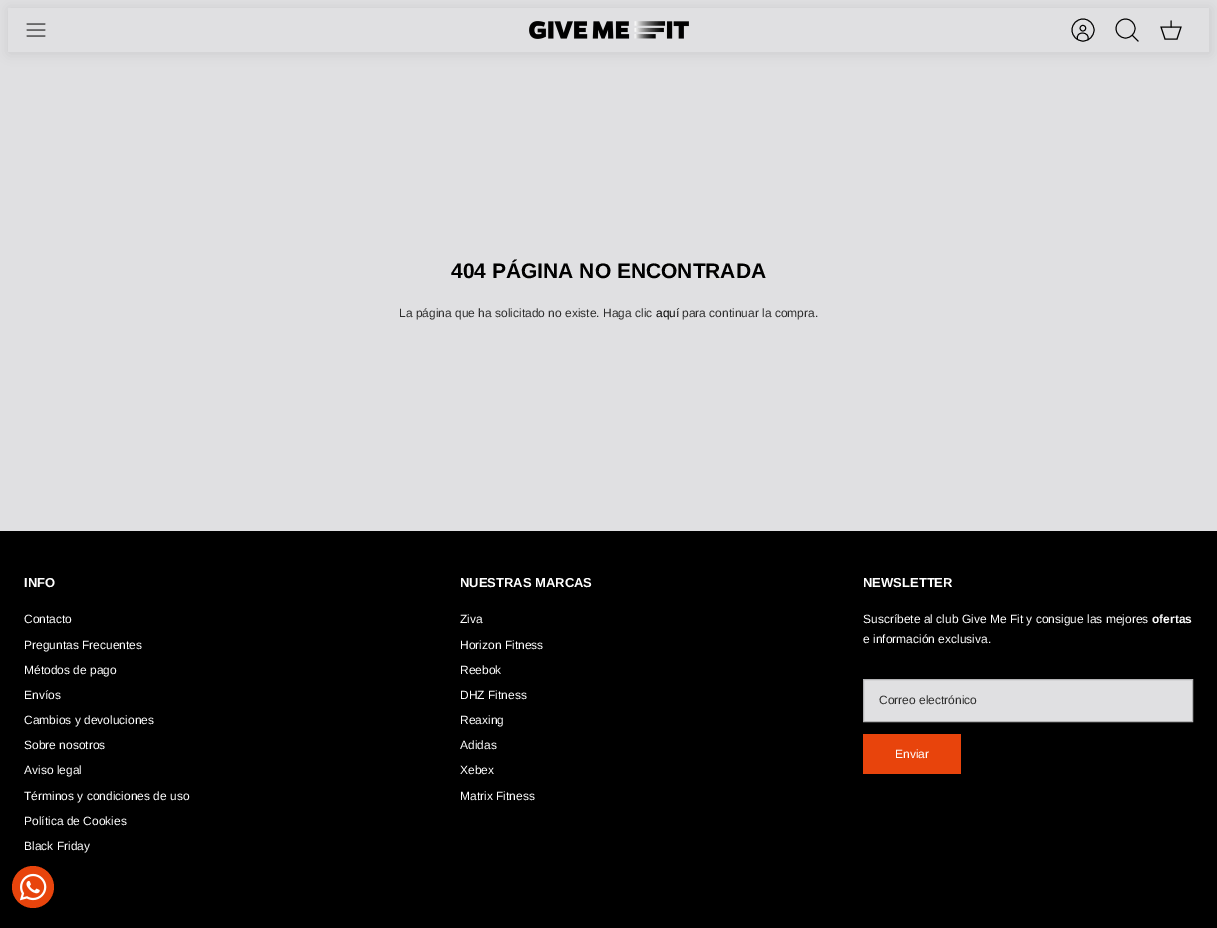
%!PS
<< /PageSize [1217 928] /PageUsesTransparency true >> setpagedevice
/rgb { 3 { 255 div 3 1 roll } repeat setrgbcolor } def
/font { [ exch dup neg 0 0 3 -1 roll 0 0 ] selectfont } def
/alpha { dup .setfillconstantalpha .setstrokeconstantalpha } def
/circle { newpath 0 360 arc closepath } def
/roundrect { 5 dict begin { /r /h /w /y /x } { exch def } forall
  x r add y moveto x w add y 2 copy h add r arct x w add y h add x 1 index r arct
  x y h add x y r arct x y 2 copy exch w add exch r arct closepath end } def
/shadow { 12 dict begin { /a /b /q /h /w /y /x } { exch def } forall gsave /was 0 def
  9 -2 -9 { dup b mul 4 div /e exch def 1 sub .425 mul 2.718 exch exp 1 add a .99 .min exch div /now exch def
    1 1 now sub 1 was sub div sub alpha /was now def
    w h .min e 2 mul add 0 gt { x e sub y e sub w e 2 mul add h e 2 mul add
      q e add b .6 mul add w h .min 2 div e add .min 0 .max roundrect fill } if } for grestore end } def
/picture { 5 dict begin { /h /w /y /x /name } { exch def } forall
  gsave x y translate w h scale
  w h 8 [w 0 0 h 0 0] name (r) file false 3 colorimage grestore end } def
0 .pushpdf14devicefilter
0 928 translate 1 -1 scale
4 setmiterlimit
224 224 226 rgb
0 0 1217 928 rectfill
gsave
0 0 moveto 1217 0 lineto 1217 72 lineto 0 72 lineto closepath 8 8 moveto 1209 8 lineto 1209 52 lineto 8 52 lineto closepath eoclip newpath
0 0 0 rgb
9 9 1201 44 0 6 0.1 shadow
grestore
(img/1.rgb) 26 23 20 14 picture
(img/2.rgb) 529 21 160 18 picture
0 0 0 rgb
0.9 setlinewidth
1088 40 moveto 1090.5 31 1075 30.5 1077.5 39.5 curveto stroke
1082.9 28.2 2.8 circle stroke
1083 30 11 circle stroke
1125.5 28.5 9.5 circle stroke
2 setlinecap
1132.5 35.5 moveto 1138 41 lineto stroke
1 setlinewidth
0 setlinecap
1161 27 moveto 1181 27 lineto 1177 39 lineto 1165 39 lineto closepath stroke
2 setlinecap
1171 27 moveto 1171 21 lineto stroke
0 531 1217 397 rectfill
224 224 226 rgb
863.5 679.5 moveto 1192.5 679.5 lineto 1192.5 721.5 lineto 863.5 721.5 lineto closepath gsave fill grestore
179 179 181 rgb
0 setlinecap
stroke
232 68 12 rgb
863 734 98 40 rectfill
33 887 21 circle fill
(img/3.rgb) 20 873 27 28 picture
/LiberationSans-Bold 21 font
0 0 0 rgb
451 278 moveto (404 PÁGINA NO ENCONTRADA) show
/LiberationSans-Regular 12 font
45 45 45 rgb
399 317 moveto (La página que ha solicitado no existe. Haga clic) show
0 0 0 rgb
656 317 moveto (aquí) show
45 45 45 rgb
682 317 moveto (para continuar la compra.) show
/LiberationSans-Bold 13 font
255 255 255 rgb
24 587 moveto (INFO) show
/LiberationSans-Regular 12 font
[
  [(Contacto) 24 623]
  [(Preguntas Frecuentes) 24 649]
  [(Métodos de pago) 24 674]
  [(Envíos) 24 699]
  [(Cambios y devoluciones) 24 724]
  [(Sobre nosotros) 24 749]
  [(Aviso legal) 24 774]
  [(Términos y condiciones de uso) 24 800]
  [(Política de Cookies) 24 825]
  [(Black Friday) 24 850]
] { aload pop moveto show } forall
/LiberationSans-Bold 13 font
460 587 moveto (NUESTRAS MARCAS) show
/LiberationSans-Regular 12 font
[
  [(Ziva) 460 623]
  [(Horizon Fitness) 460 649]
  [(Reebok) 460 674]
  [(DHZ Fitness) 460 699]
  [(Reaxing) 460 724]
  [(Adidas) 460 749]
  [(Xebex) 460 774]
  [(Matrix Fitness) 460 800]
] { aload pop moveto show } forall
/LiberationSans-Bold 13 font
863 587 moveto (NEWSLETTER) show
/LiberationSans-Regular 12 font
863 623 moveto (Suscríbete al club Give Me Fit y consigue las mejores) show
/LiberationSans-Bold 12 font
1152 623 moveto (ofertas) show
/LiberationSans-Regular 12 font
863 643 moveto (e información exclusiva.) show
45 45 45 rgb
879 704 moveto (Correo electrónico) show
255 255 255 rgb
895 758 moveto (Enviar) show
.poppdf14devicefilter showpage
